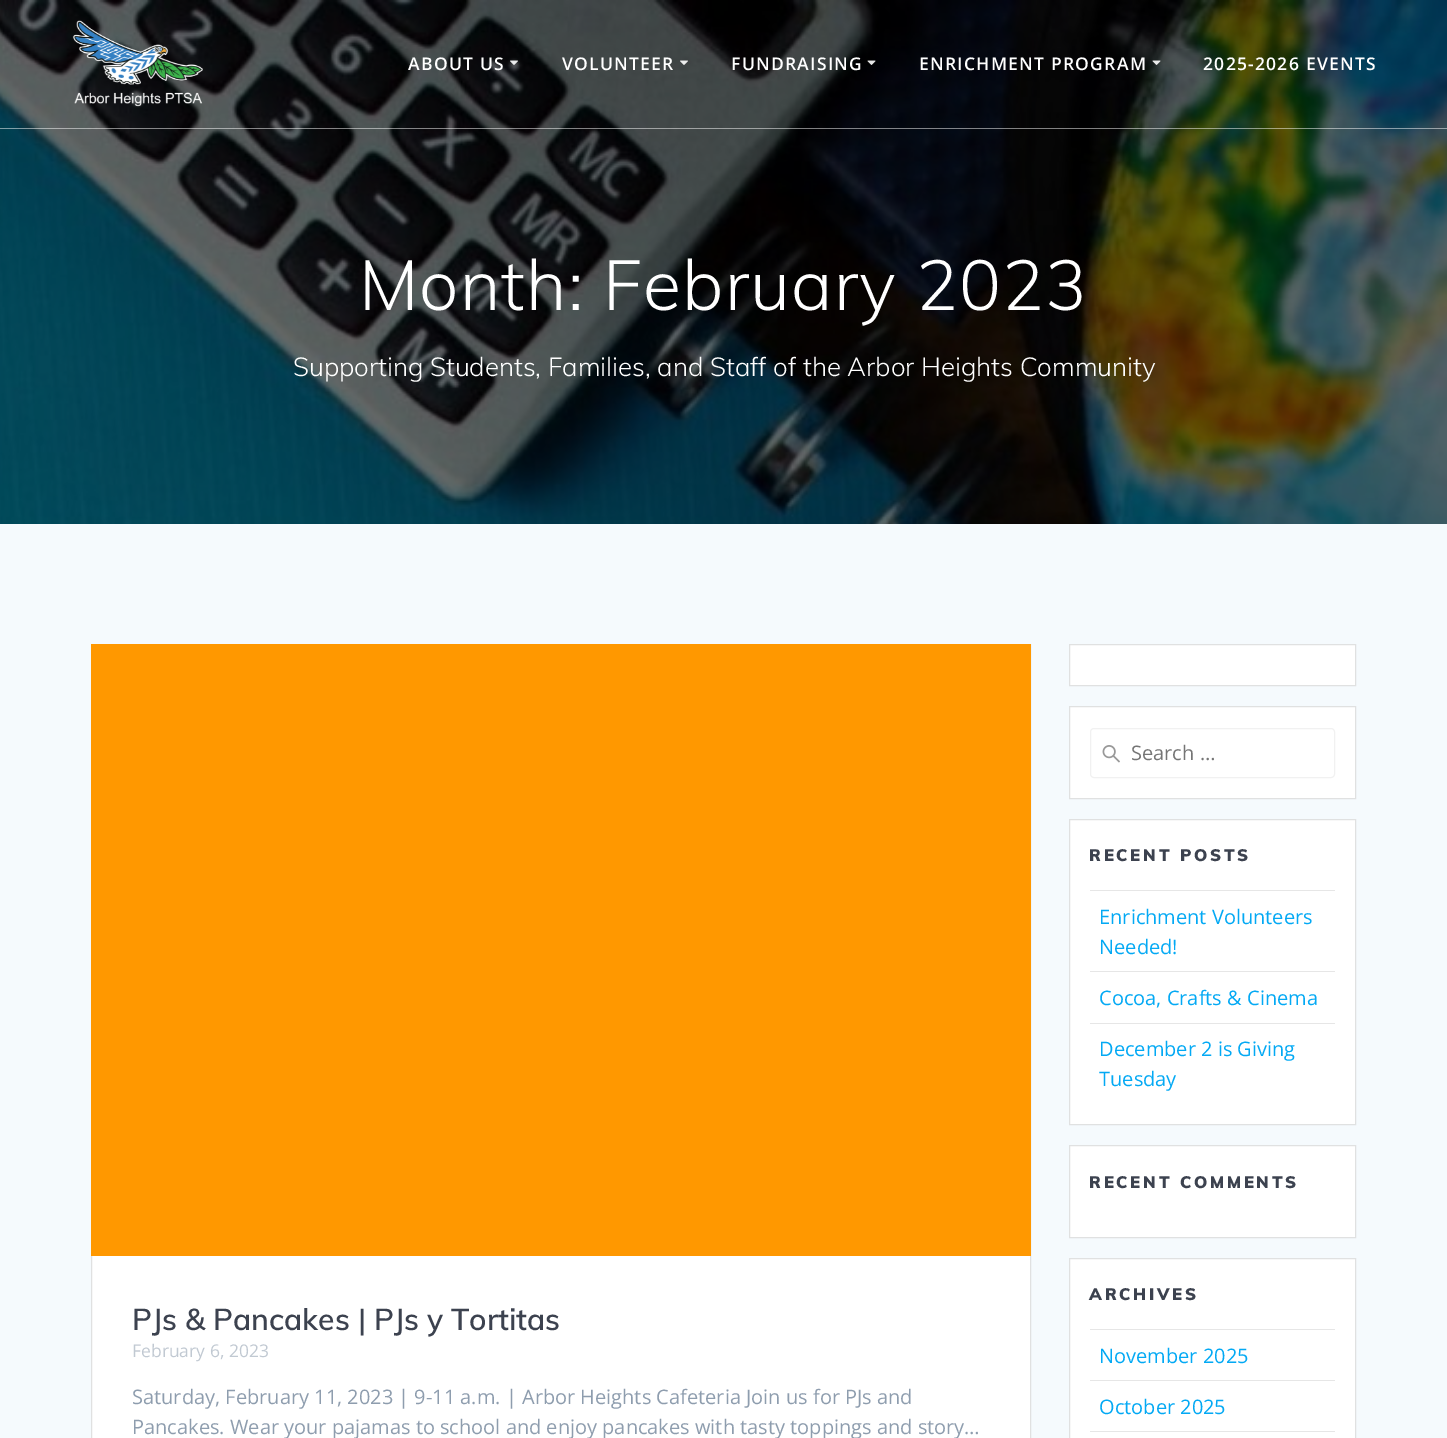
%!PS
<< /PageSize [1447 1438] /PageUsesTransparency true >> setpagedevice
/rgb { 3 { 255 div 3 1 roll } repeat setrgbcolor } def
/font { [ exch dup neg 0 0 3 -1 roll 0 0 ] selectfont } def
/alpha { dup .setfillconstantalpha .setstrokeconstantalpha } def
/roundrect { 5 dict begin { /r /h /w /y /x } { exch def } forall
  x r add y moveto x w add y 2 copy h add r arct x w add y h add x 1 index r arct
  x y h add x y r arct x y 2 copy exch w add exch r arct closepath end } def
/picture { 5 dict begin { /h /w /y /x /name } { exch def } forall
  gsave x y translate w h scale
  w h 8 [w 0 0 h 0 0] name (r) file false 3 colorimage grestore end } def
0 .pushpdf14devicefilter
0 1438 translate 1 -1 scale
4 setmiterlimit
255 255 255 rgb
0 0 1447 1438 rectfill
(img/6.rgb) 0 0 1447 524 picture
0.5 alpha
0 128 1447 1 rectfill
1 alpha
(img/1.rgb) 72 20 131 87 picture
(img/2.rgb) 510 60 8 5 picture
(img/3.rgb) 680 60 8 5 picture
(img/4.rgb) 867 60 9 5 picture
(img/5.rgb) 1152 60 9 5 picture
245 250 253 rgb
0 524 1447 914 rectfill
255 255 255 rgb
92 1256 938 182 rectfill
224 225 225 rgb
91.5 644.5 939 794 rectstroke
255 152 0 rgb
91 644 940 612 rectfill
255 255 255 rgb
1069.5 644.5 moveto 1355.5 644.5 lineto 1355.5 685.5 lineto 1069.5 685.5 lineto closepath gsave fill grestore
224 225 225 rgb
stroke
255 255 255 rgb
1069.5 706.5 moveto 1355.5 706.5 lineto 1355.5 798.5 lineto 1069.5 798.5 lineto closepath gsave fill grestore
224 225 225 rgb
stroke
(img/7.rgb) 1102 745 18 18 picture
241 241 241 rgb
1090.5 728.5 244 49 3.5 roundrect stroke
255 255 255 rgb
1069.5 819.5 moveto 1355.5 819.5 lineto 1355.5 1124.5 lineto 1069.5 1124.5 lineto closepath gsave fill grestore
224 225 225 rgb
stroke
[
  [1090 890 245 1 230 230 230]
  [1090 971 245 1 230 230 230]
  [1090 1023 245 1 230 230 230]
] { aload pop rgb rectfill } forall
255 255 255 rgb
1069.5 1145.5 moveto 1355.5 1145.5 lineto 1355.5 1237.5 lineto 1069.5 1237.5 lineto closepath gsave fill grestore
224 225 225 rgb
stroke
255 255 255 rgb
1069.5 1258.5 moveto 1355.5 1258.5 lineto 1355.5 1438.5 lineto 1069.5 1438.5 lineto closepath gsave fill grestore
224 225 225 rgb
stroke
[
  [1090 1329 245 1 230 230 230]
  [1090 1380 245 1 230 230 230]
  [1090 1431 245 1 230 230 230]
] { aload pop rgb rectfill } forall
/OpenSans-SemiBold 17.5 font
255 255 255 rgb
408 70 moveto 1.25 0 (ABOUT US) ashow
562 70 moveto 1.25 0 (VOLUNTEER) ashow
731 70 moveto 1.25 0 (FUNDRAISING) ashow
919 70 moveto 1.25 0 (ENRICHMENT PROGRAM) ashow
1203 70 moveto 1.25 0 (2025-2026 EVENTS) ashow
/Muli-Light 70 font
359 310 moveto 1.1 0 (Month: February 2023) ashow
/Muli-Light 26 font
293 376 moveto (Supporting Students, Families, and Staff of the Arbor Heights Community) show
/Muli-SemiBold 30 font
60 66 79 rgb
132 1330 moveto (PJs & Pancakes | PJs y Tortitas) show
/OpenSans-Regular 17.5 font
193 201 210 rgb
132 1357 moveto (February 6, 2023) show
/OpenSans-Regular 20 font
142 157 174 rgb
132 1404 moveto (Saturday, February 11, 2023 | 9-11 a.m. | Arbor Heights Cafeteria Join us for PJs and) show
132 1434 moveto (Pancakes. Wear your pajamas to school and enjoy pancakes with tasty toppings and story…) show
117 117 117 rgb
1131 760 moveto (Search …) show
/Muli-Black 16.6 font
60 66 79 rgb
1089 861 moveto 2.75 0 (RECENT POSTS) ashow
/OpenSans-Regular 20 font
3 169 244 rgb
[
  [(Enrichment Volunteers) 1099 924]
  [(Needed!) 1099 954]
  [(Cocoa, Crafts & Cinema) 1099 1005]
  [(December 2 is Giving) 1099 1056]
  [(Tuesday) 1099 1086]
] { aload pop moveto show } forall
/Muli-Black 16.6 font
60 66 79 rgb
1089 1188 moveto 2.75 0 (RECENT COMMENTS) ashow
1089 1300 moveto 2.75 0 (ARCHIVES) ashow
/OpenSans-Regular 20 font
3 169 244 rgb
1099 1363 moveto (November 2025) show
1099 1414 moveto (October 2025) show
.poppdf14devicefilter showpage
